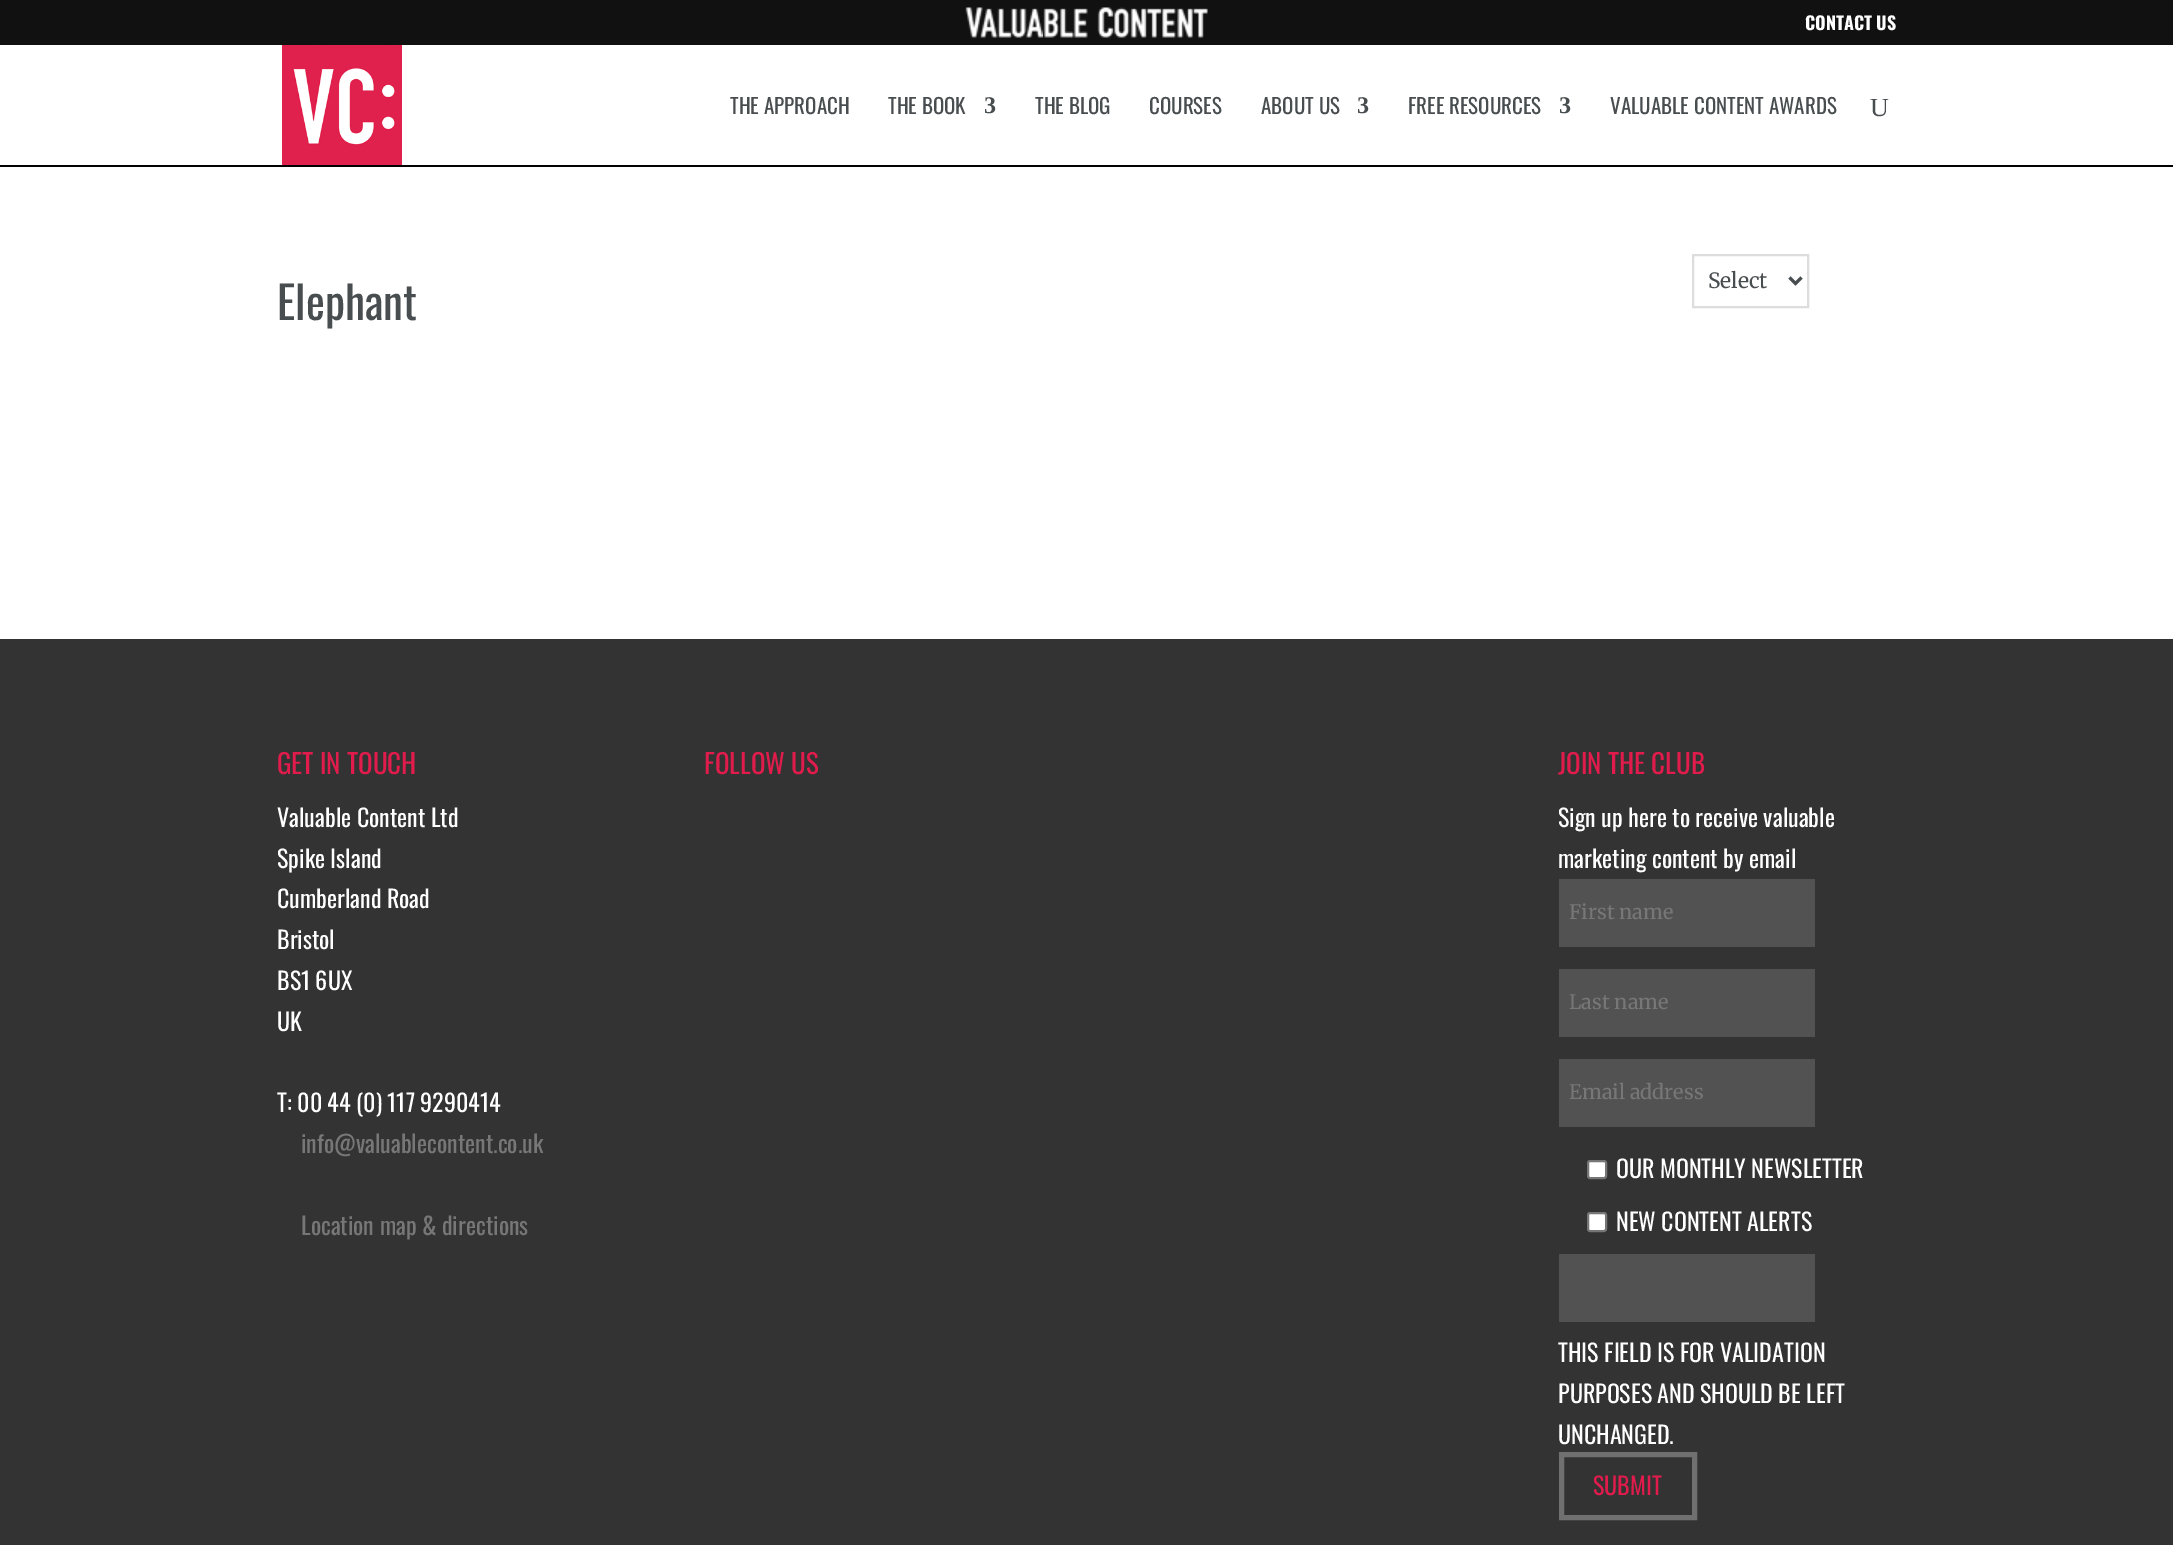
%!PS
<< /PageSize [2173 1545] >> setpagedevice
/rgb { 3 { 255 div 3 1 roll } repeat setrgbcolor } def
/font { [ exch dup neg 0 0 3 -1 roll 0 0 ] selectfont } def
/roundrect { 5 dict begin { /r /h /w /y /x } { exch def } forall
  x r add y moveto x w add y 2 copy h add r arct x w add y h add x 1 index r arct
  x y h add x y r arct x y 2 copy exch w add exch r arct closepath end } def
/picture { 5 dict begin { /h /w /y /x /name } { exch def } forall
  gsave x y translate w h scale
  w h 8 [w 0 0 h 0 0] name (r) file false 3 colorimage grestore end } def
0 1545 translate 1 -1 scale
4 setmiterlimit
0 0 0 rgb
0 0 2173 1545 rectfill
17 17 17 rgb
0 0 2173 45 rectfill
(img/1.rgb) 965 7 243 31 picture
255 255 255 rgb
0 45 2173 120 rectfill
(img/2.rgb) 282 45 120 120 picture
0 167 2173 472 rectfill
221 221 221 rgb
2 setlinewidth
1693 255 115 52 rectstroke
72 77 80 rgb
3 setlinewidth
1789.5 277.5 moveto 1795.5 283.5 lineto 1801.5 277.5 lineto stroke
[
  [0 639 2173 906 51 51 51]
  [1559 879 256 68 82 82 82]
  [1559 969 256 68 82 82 82]
  [1559 1059 256 68 82 82 82]
] { aload pop rgb rectfill } forall
255 255 255 rgb
1588 1161 18 17 2 roundrect gsave fill grestore
118 118 118 rgb
2 setlinewidth
stroke
255 255 255 rgb
1588 1213 18 18 2 roundrect gsave fill grestore
118 118 118 rgb
stroke
82 82 82 rgb
1559 1254 256 68 rectfill
112 112 112 rgb
5 setlinewidth
1561.5 1454.5 133 63 rectstroke
/Oswald-Bold 18 font
255 255 255 rgb
1805 30 moveto (CONTACT US) show
/Oswald-Regular 21 font
72 77 80 rgb
730 114 moveto (THE APPROACH) show
888 114 moveto (THE BOOK) show
/LiberationSerif-Bold 24 font
984 113 moveto (3) show
/Oswald-Regular 21 font
[
  [(THE BLOG) 1035 114]
  [(COURSES) 1149 114]
  [(ABOUT US) 1261 114]
] { aload pop moveto show } forall
/LiberationSerif-Bold 24 font
1357 113 moveto (3) show
/Oswald-Regular 21 font
1408 114 moveto (FREE RESOURCES) show
/LiberationSerif-Bold 24 font
1559 113 moveto (3) show
/Oswald-Regular 21 font
1610 114 moveto (VALUABLE CONTENT AWARDS) show
/LiberationSerif-Regular 26 font
1870 116 moveto (U) show
/Merriweather-Regular 21 font
1708 288 moveto (Select) show
/Oswald-Regular 45 font
277 320 moveto (Elephant) show
/Oswald-Regular 27 font
225 28 76 rgb
277 774 moveto (GET IN TOUCH) show
/Oswald-Regular 24 font
255 255 255 rgb
[
  [(Valuable Content Ltd) 277 827]
  [(Spike Island) 277 868]
  [(Cumberland Road) 277 908]
  [(Bristol) 277 949]
  [(BS1 6UX) 277 990]
  [(UK) 277 1031]
  [(T: 00 44 \(0\) 117 9290414) 277 1112]
] { aload pop moveto show } forall
119 119 119 rgb
301 1153 moveto (info@valuablecontent.co.uk) show
301 1235 moveto (Location map & directions) show
/Oswald-Regular 27 font
225 28 76 rgb
704 774 moveto (FOLLOW US) show
1558 774 moveto (JOIN THE CLUB) show
/Oswald-Regular 24 font
255 255 255 rgb
1558 827 moveto (Sign up here to receive valuable) show
1558 868 moveto (marketing content by email) show
/Merriweather-Regular 20 font
119 119 119 rgb
[
  [(First name) 1569 919]
  [(Last name) 1569 1009]
  [(Email address) 1569 1099]
] { aload pop moveto show } forall
/Oswald-Regular 24 font
255 255 255 rgb
[
  [(OUR MONTHLY NEWSLETTER) 1616 1178]
  [(NEW CONTENT ALERTS) 1616 1231]
  [(THIS FIELD IS FOR VALIDATION) 1558 1362]
  [(PURPOSES AND SHOULD BE LEFT) 1558 1403]
  [(UNCHANGED.) 1558 1444]
] { aload pop moveto show } forall
225 28 76 rgb
1593 1495 moveto (SUBMIT) show
showpage
